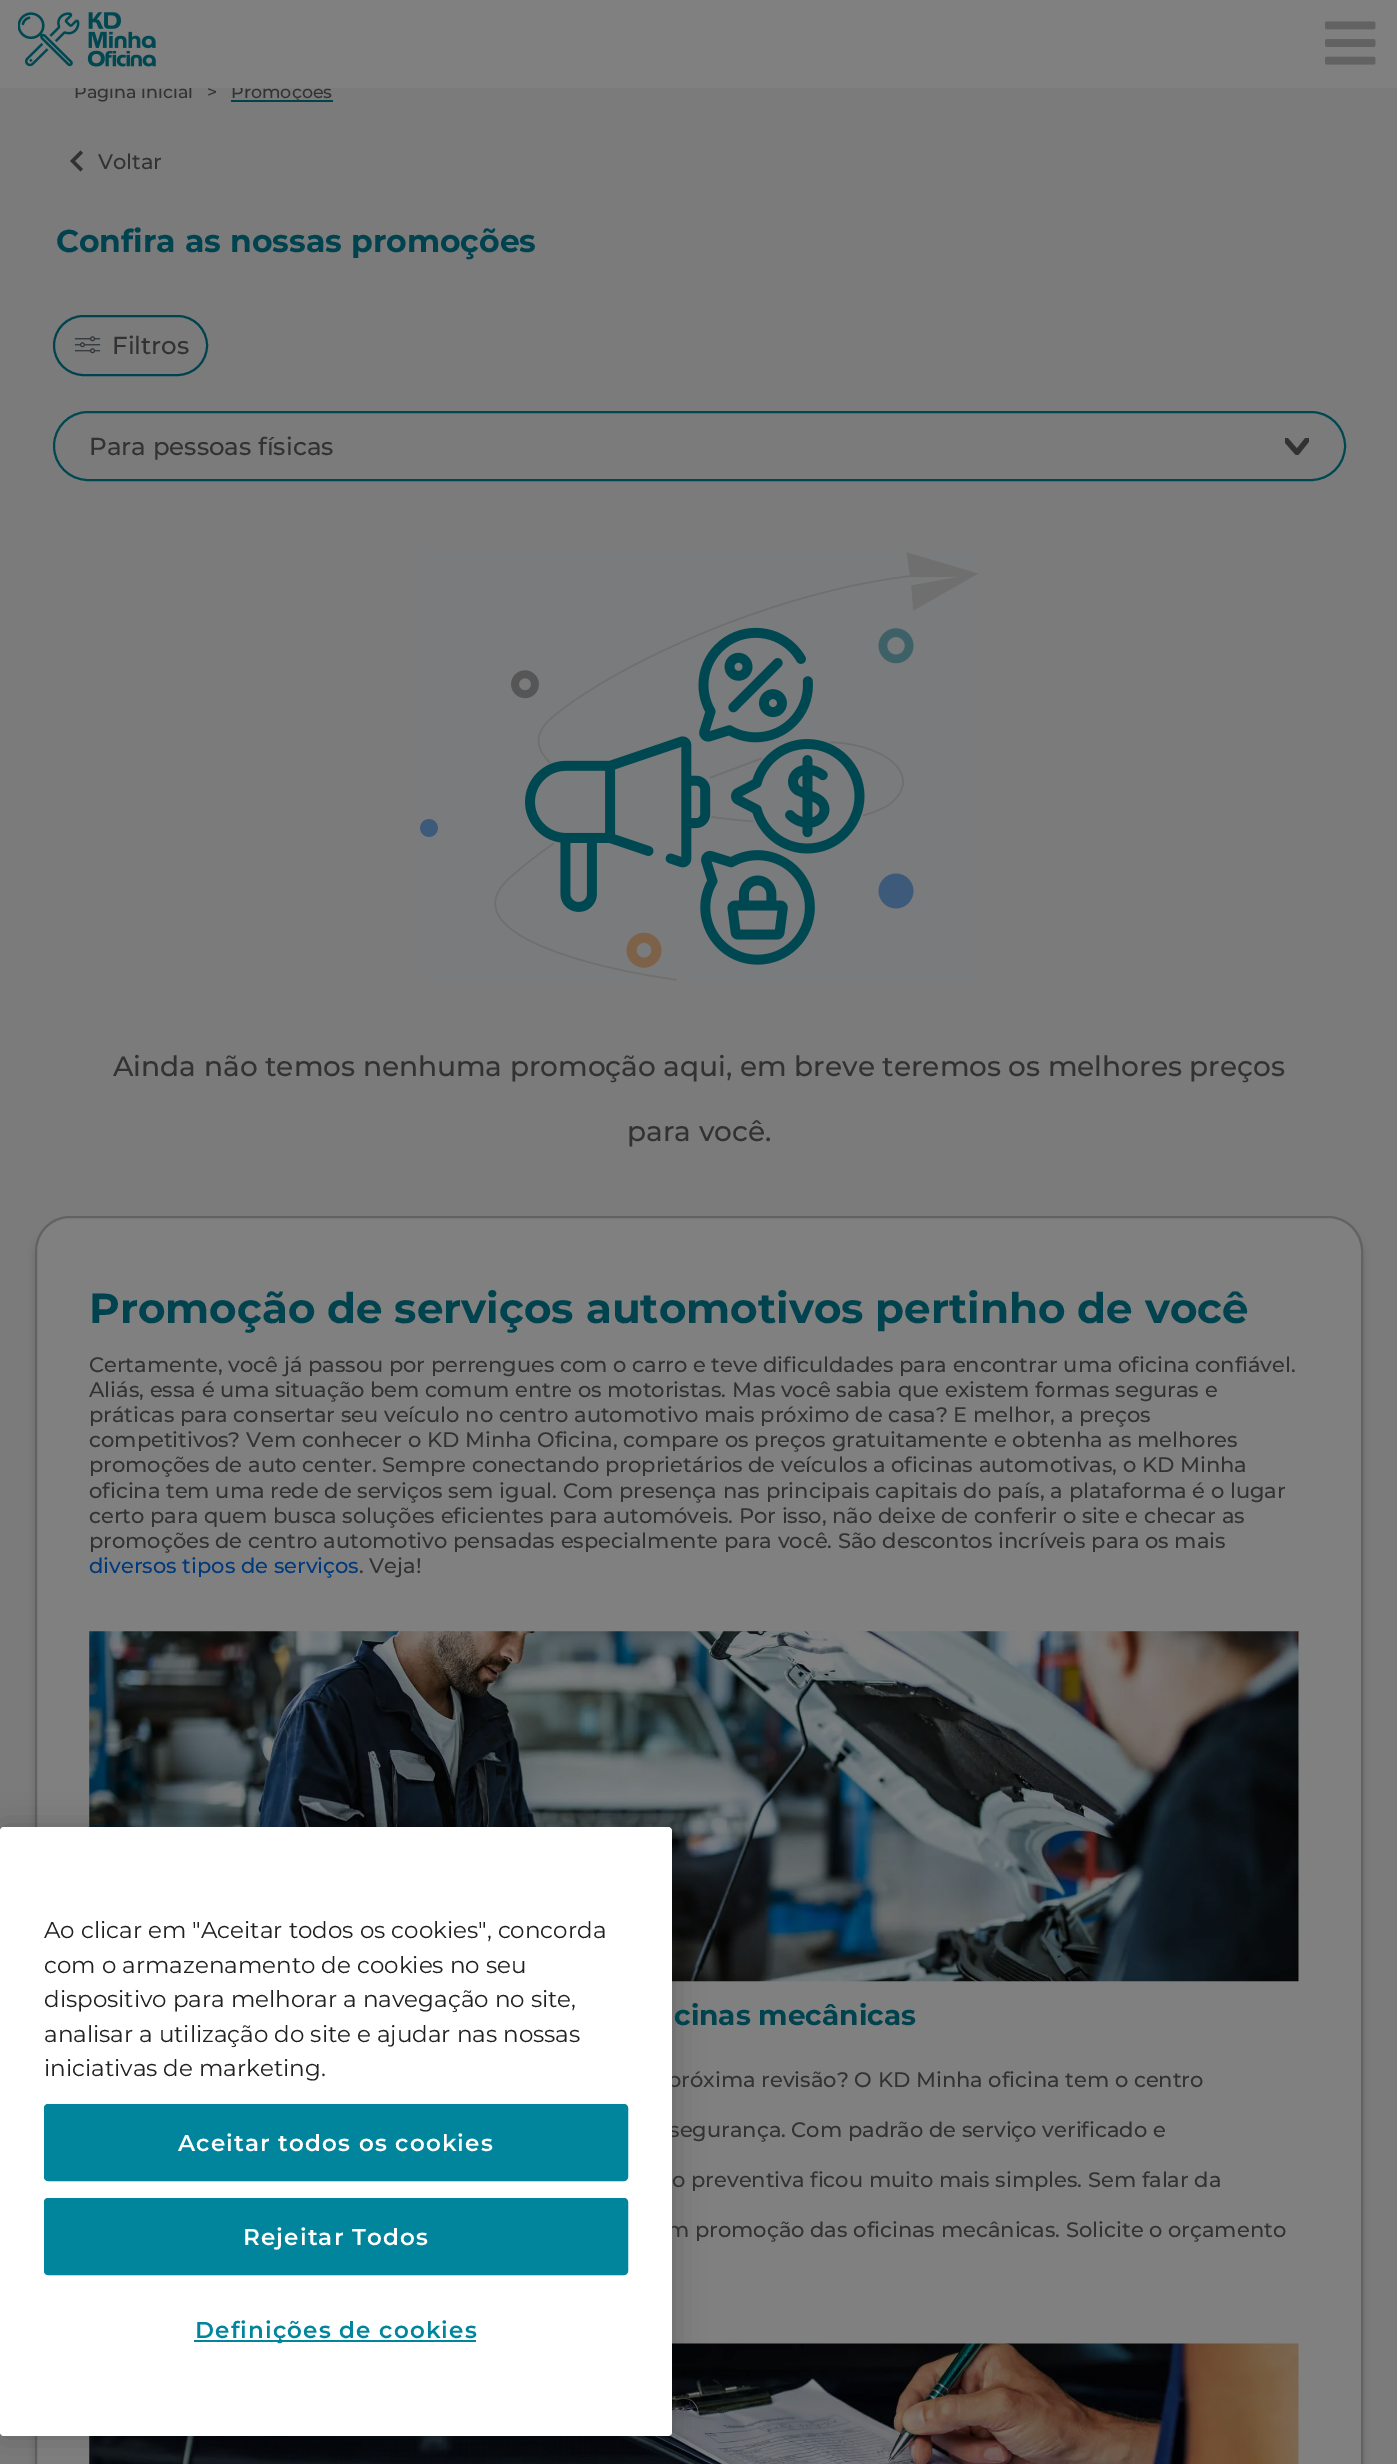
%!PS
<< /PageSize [1397 2464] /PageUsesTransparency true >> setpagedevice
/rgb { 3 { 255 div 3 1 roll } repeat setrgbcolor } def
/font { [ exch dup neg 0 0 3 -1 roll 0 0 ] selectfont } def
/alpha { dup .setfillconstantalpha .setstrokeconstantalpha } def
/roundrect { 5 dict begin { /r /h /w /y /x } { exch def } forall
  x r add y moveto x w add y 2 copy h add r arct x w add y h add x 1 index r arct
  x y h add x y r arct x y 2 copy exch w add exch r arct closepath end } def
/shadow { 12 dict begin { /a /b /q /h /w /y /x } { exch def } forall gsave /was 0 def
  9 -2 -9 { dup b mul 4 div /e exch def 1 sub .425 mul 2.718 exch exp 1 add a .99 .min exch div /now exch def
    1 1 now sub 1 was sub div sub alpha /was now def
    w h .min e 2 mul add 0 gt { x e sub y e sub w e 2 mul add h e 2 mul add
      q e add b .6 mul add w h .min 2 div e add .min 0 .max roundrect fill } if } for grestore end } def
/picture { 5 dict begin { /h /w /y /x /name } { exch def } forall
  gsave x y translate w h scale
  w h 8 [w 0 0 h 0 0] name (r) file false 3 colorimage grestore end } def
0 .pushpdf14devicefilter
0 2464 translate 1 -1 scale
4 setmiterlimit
123 123 124 rgb
0 0 1397 2464 rectfill
0 67 78 rgb
231 100 102 2 rectfill
50 50 51 rgb
83 169 moveto 75 161 lineto 83 153 lineto 80.5 150.5 lineto 70 161 lineto 80.5 171.5 lineto closepath fill
0 67 78 rgb
2 setlinewidth
54 316 153 59 29.5 roundrect stroke
(img/3.rgb) 74 336 27 18 picture
0 72 81 rgb
54 412 1291 68 34 roundrect stroke
gsave
1285 438 24 17 rectclip
50 50 51 rgb
5.2 setlinewidth
1 setlinecap
1 setlinejoin
1286 440 moveto 1297 452.5 lineto 1307 440 lineto stroke
grestore
(img/4.rgb) 420 552 558 429 picture
0 0 0 rgb
35 1223 1328 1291 35 5 0.15 shadow
128 128 128 rgb
36 1217 1326 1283 34 roundrect gsave fill grestore
98 98 98 rgb
stroke
(img/5.rgb) 89 1631 1210 351 picture
(img/6.rgb) 89 2343 1210 121 picture
0 0 0 rgb
0 1827 672 609 4 16 0.2 shadow
/Montserrat-Medium 17.5 font
50 50 51 rgb
[
  [(Página inicial) 74 98]
  [(>) 207 98]
  [(Promoções) 231 98]
] { aload pop moveto show } forall
128 128 128 rgb
0 0 1397 88 rectfill
(img/2.rgb) 1325 21 51 44 picture
(img/1.rgb) 18 12 138 55 picture
/Montserrat-Medium 21 font
50 50 51 rgb
98 169 moveto (Voltar) show
/Montserrat-Bold 31.5 font
0 67 78 rgb
56 252 moveto (Confira as nossas promoções) show
/Montserrat-Medium 24.5 font
50 50 51 rgb
112 354 moveto (Filtros) show
89 455 moveto (Para pessoas físicas) show
/Montserrat-Medium 28 font
113 1076 moveto (Ainda não temos nenhuma promoção aqui, em breve teremos os melhores preços) show
627 1141 moveto (para você.) show
/Montserrat-Bold 42 font
0 67 78 rgb
89 1323 moveto (Promoção de serviços automotivos pertinho de você) show
/Montserrat-Medium 21 font
50 50 51 rgb
[
  [(Certamente, você já passou por perrengues com o carro e teve dificuldades para encontrar uma oficina confiável.) 89 1372]
  [(Aliás, essa é uma situação bem comum entre os motoristas. Mas você sabia que existem formas seguras e) 89 1397]
  [(práticas para consertar seu veículo no centro automotivo mais próximo de casa? E melhor, a preços) 89 1422]
  [(competitivos? Vem conhecer o KD Minha Oficina, compare os preços gratuitamente e obtenha as melhores) 89 1447]
  [(promoções de auto center. Sempre conectando proprietários de veículos a oficinas automotivas, o KD Minha) 89 1472]
  [(oficina tem uma rede de serviços sem igual. Com presença nas principais capitais do país, a plataforma é o lugar) 89 1498]
  [(certo para quem busca soluções eficientes para automóveis. Por isso, não deixe de conferir o site e checar as) 89 1523]
  [(promoções de centro automotivo pensadas especialmente para você. São descontos incríveis para os mais) 89 1548]
] { aload pop moveto show } forall
0 57 123 rgb
89 1573 moveto (diversos tipos de serviços) show
50 50 51 rgb
359 1573 moveto (. Veja!) show
/Montserrat-Bold 28 font
0 67 78 rgb
674 2025 moveto (cinas mecânicas) show
/Montserrat-Medium 21 font
50 50 51 rgb
[
  [(próxima revisão? O KD Minha oficina tem o centro) 667 2087]
  [(segurança. Com padrão de serviço verificado e) 669 2137]
  [(o preventiva ficou muito mais simples. Sem falar da) 672 2187]
  [(m promoção das oficinas mecânicas. Solicite o orçamento) 667 2237]
] { aload pop moveto show } forall
255 255 255 rgb
0 1827 672 609 4 roundrect fill
/Montserrat-Regular 23 font
33 33 33 rgb
[
  [(Ao clicar em "Aceitar todos os cookies", concorda) 44 1938]
  [(com o armazenamento de cookies no seu) 44 1973]
  [(dispositivo para melhorar a navegação no site,) 44 2007]
  [(analisar a utilização do site e ajudar nas nossas) 44 2042]
  [(iniciativas de marketing.) 44 2076]
] { aload pop moveto show } forall
0 133 156 rgb
45 2105 582 75 3 roundrect gsave fill grestore
stroke
/Montserrat-SemiBold 23 font
255 255 255 rgb
178 2151 moveto 1.15 0 (Aceitar todos os cookies) ashow
0 133 156 rgb
45 2199 582 75 3 roundrect gsave fill grestore
stroke
255 255 255 rgb
243 2245 moveto 1.15 0 (Rejeitar Todos) ashow
0 133 156 rgb
194 2340 282 2 rectfill
195 2338 moveto 1.15 0 (Definições de cookies) ashow
.poppdf14devicefilter showpage
